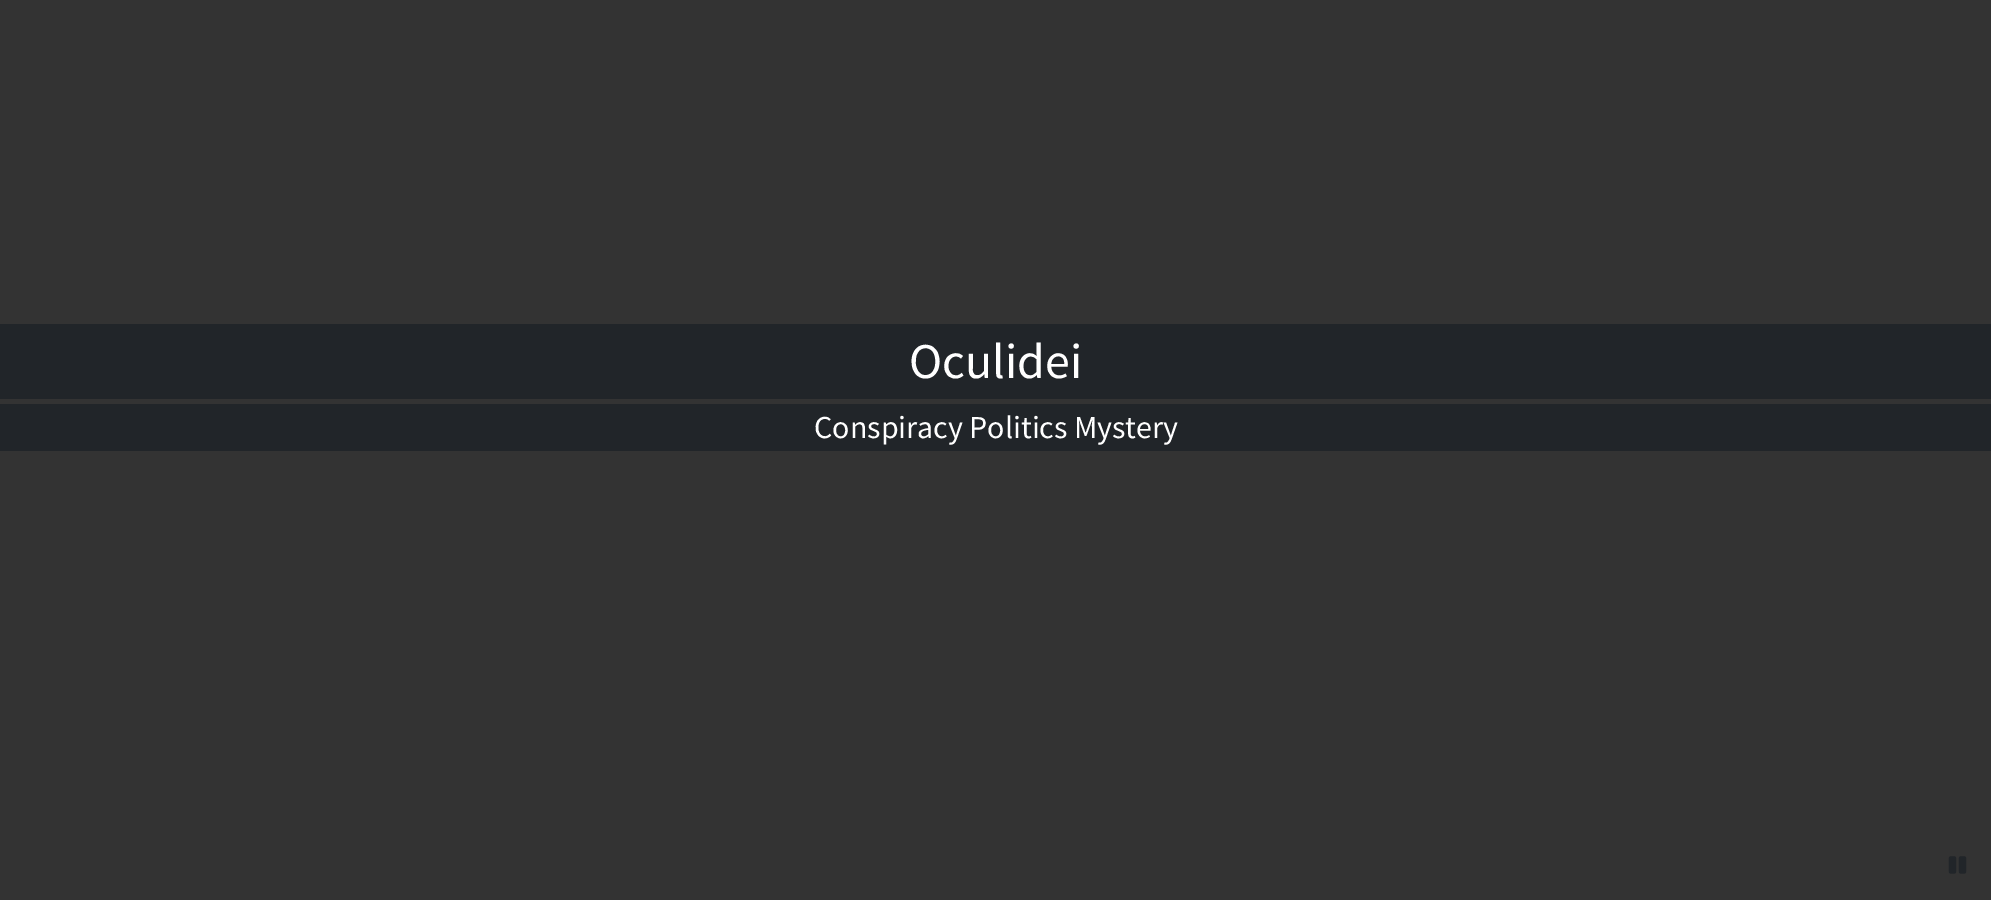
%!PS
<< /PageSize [1991 919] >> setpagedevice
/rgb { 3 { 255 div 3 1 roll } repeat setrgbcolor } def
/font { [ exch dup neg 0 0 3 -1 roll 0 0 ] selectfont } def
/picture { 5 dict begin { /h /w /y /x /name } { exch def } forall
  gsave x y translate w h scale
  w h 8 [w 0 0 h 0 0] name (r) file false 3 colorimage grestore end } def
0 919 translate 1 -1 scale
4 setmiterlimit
255 255 255 rgb
0 0 1991 919 rectfill
51 51 51 rgb
0 0 1991 900 rectfill
(img/1.rgb) 1948 856 19 18 picture
33 37 41 rgb
0 324 1991 75 rectfill
0 404 1991 47 rectfill
/SourceSansPro-Regular 50 font
255 255 255 rgb
909 378 moveto (Oculidei) show
/SourceSansPro-Regular 32 font
814 438 moveto (Conspiracy Politics Mystery) show
showpage
